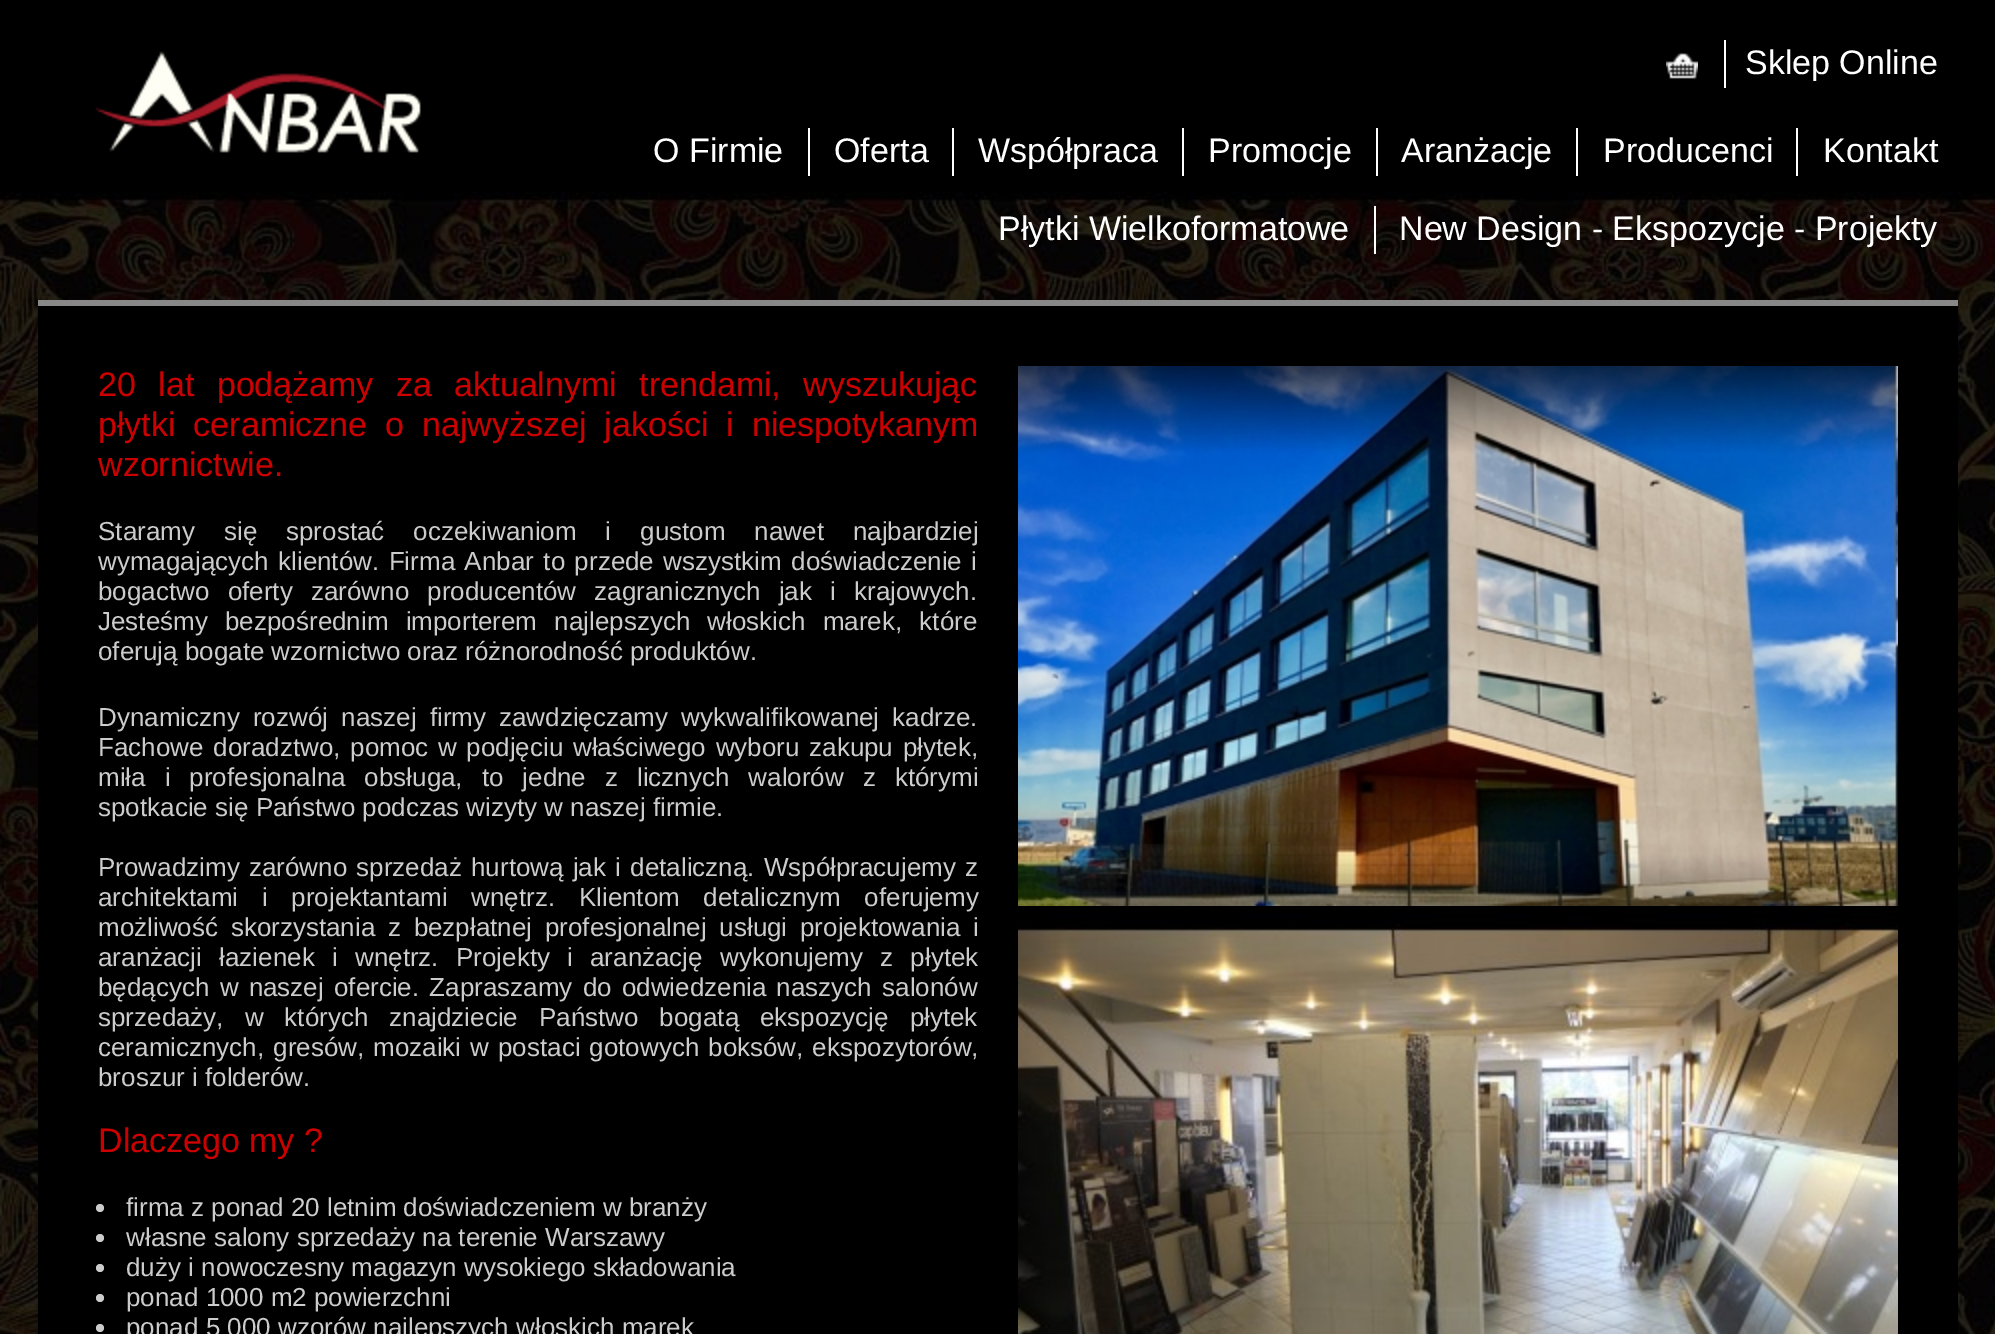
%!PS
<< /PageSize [1995 1334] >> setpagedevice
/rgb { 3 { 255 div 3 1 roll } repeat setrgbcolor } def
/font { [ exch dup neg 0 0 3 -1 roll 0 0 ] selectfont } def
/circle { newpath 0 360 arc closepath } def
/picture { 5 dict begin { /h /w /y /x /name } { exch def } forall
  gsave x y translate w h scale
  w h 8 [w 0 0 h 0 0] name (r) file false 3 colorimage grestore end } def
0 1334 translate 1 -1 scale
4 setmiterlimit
0 0 0 rgb
0 0 1995 1334 rectfill
(img/1.rgb) 0 192 1995 1142 picture
136 136 136 rgb
38 300 1920 6 rectfill
(img/2.rgb) 95 51 326 102 picture
(img/3.rgb) 1666 52 32 28 picture
[
  [1724 40 2 48 255 255 255]
  [808 128 2 48 255 255 255]
  [952 128 2 48 255 255 255]
  [1182 128 2 48 255 255 255]
  [1376 128 2 48 255 255 255]
  [1576 128 2 48 255 255 255]
  [1796 128 2 48 255 255 255]
  [1374 206 2 48 255 255 255]
  [38 306 1920 1028 0 0 0]
] { aload pop rgb rectfill } forall
204 204 204 rgb
100 1208 4 circle fill
100 1238 4 circle fill
100 1268 4 circle fill
100 1298 4 circle fill
100 1328 4 circle fill
(img/4.rgb) 1018 366 880 540 picture
(img/5.rgb) 1018 906 880 428 picture
/LiberationSans-Regular 34 font
255 255 255 rgb
[
  [(Sklep Online) 1745 74]
  [(O Firmie) 653 162]
  [(Oferta) 834 162]
  [(Współpraca) 978 162]
  [(Promocje) 1208 162]
  [(Aranżacje) 1401 162]
  [(Producenci) 1603 162]
  [(Kontakt) 1823 162]
  [(Płytki Wielkoformatowe) 998 240]
  [(New Design - Ekspozycje - Projekty) 1399 240]
] { aload pop moveto show } forall
204 0 0 rgb
98 396 moveto 13 0 32 (20 lat podążamy za aktualnymi trendami, wyszukując) widthshow
98 436 moveto 8.5 0 32 (płytki ceramiczne o najwyższej jakości i niespotykanym) widthshow
98 476 moveto (wzornictwie.) show
/LiberationSans-Regular 26 font
204 204 204 rgb
98 540 moveto 21.75 0 32 (Staramy się sprostać oczekiwaniom i gustom nawet najbardziej) widthshow
98 570 moveto 2.25 0 32 (wymagających klientów. Firma Anbar to przede wszystkim doświadczenie i) widthshow
98 600 moveto 11 0 32 (bogactwo oferty zarówno producentów zagranicznych jak i krajowych.) widthshow
98 630 moveto 10 0 32 (Jesteśmy bezpośrednim importerem najlepszych włoskich marek, które) widthshow
98 660 moveto (oferują bogate wzornictwo oraz różnorodność produktów.) show
98 726 moveto 6 0 32 (Dynamiczny rozwój naszej firmy zawdzięczamy wykwalifikowanej kadrze.) widthshow
98 756 moveto 2.5 0 32 (Fachowe doradztwo, pomoc w podjęciu właściwego wyboru zakupu płytek,) widthshow
98 786 moveto 11.75 0 32 (miła i profesjonalna obsługa, to jedne z licznych walorów z którymi) widthshow
98 816 moveto (spotkacie się Państwo podczas wizyty w naszej firmie.) show
98 876 moveto 2 0 32 (Prowadzimy zarówno sprzedaż hurtową jak i detaliczną. Współpracujemy z) widthshow
98 906 moveto 16.5 0 32 (architektami i projektantami wnętrz. Klientom detalicznym oferujemy) widthshow
98 936 moveto 5.5 0 32 (możliwość skorzystania z bezpłatnej profesjonalnej usługi projektowania i) widthshow
98 966 moveto 10 0 32 (aranżacji łazienek i wnętrz. Projekty i aranżację wykonujemy z płytek) widthshow
98 996 moveto 3 0 32 (będących w naszej ofercie. Zapraszamy do odwiedzenia naszych salonów) widthshow
98 1026 moveto 13.75 0 32 (sprzedaży, w których znajdziecie Państwo bogatą ekspozycję płytek) widthshow
98 1056 moveto 1.75 0 32 (ceramicznych, gresów, mozaiki w postaci gotowych boksów, ekspozytorów,) widthshow
98 1086 moveto (broszur i folderów.) show
/LiberationSans-Regular 34 font
204 0 0 rgb
98 1152 moveto (Dlaczego my ?) show
/LiberationSans-Regular 26 font
204 204 204 rgb
[
  [(firma z ponad 20 letnim doświadczeniem w branży) 126 1216]
  [(własne salony sprzedaży na terenie Warszawy) 126 1246]
  [(duży i nowoczesny magazyn wysokiego składowania) 126 1276]
  [(ponad 1000 m2 powierzchni) 126 1306]
  [(ponad 5 000 wzorów najlepszych włoskich marek) 126 1336]
] { aload pop moveto show } forall
showpage
